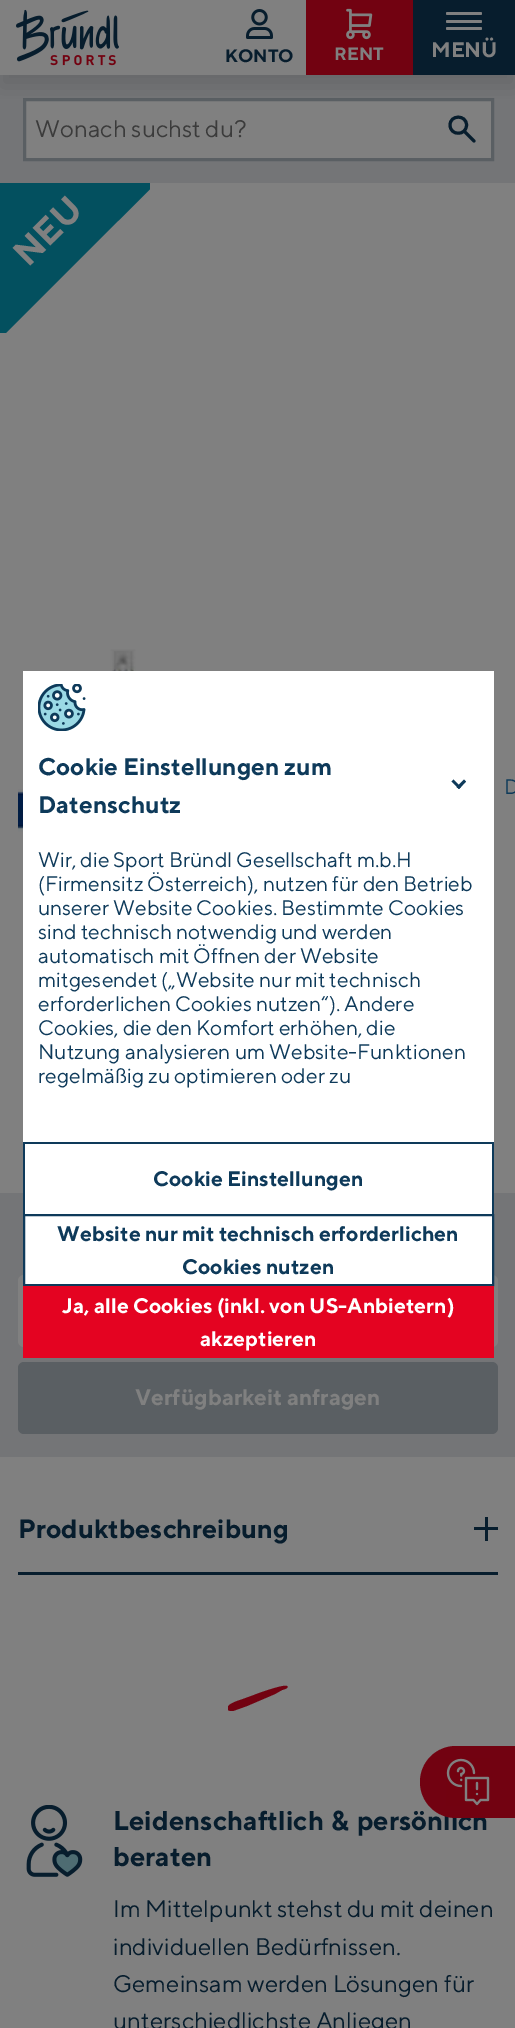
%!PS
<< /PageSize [515 2028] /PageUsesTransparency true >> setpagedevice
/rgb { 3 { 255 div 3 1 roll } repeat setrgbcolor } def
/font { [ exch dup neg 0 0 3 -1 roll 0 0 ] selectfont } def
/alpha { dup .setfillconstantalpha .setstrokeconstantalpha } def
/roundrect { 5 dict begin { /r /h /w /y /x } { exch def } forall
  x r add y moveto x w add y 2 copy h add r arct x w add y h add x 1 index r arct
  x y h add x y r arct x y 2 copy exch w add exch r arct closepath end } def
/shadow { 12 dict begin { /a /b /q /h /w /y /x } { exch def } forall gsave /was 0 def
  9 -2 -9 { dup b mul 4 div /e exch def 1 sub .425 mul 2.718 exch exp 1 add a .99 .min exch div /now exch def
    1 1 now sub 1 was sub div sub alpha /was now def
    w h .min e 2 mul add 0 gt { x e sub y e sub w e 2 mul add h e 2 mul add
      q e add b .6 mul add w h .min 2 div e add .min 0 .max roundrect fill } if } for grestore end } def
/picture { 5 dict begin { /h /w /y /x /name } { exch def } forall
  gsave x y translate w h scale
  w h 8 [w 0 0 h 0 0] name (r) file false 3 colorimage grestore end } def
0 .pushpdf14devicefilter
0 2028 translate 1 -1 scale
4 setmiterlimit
128 128 128 rgb
0 0 515 2028 rectfill
116 117 119 rgb
0 75 515 108 rectfill
128 128 128 rgb
24.5 99.5 moveto 492.5 99.5 lineto 492.5 159.5 lineto 24.5 159.5 lineto closepath gsave fill grestore
90 95 99 rgb
3 setlinewidth
stroke
7 29 45 rgb
1 setlinecap
1 setlinejoin
464 131 moveto 474 141 lineto 466.5 125 moveto 466.5 136 450 136 450 125 curveto 450 114.5 466.5 114.5 466.5 125 curveto closepath stroke
gsave
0 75 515 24 rectclip
0 0 0 rgb
0 12 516 75 0 12 0.12 shadow
grestore
(img/1.rgb) 16 9 103 57 picture
(img/2.rgb) 246 9 27 30 picture
114 2 17 rgb
306 0 107 75 rectfill
(img/3.rgb) 346 8 27 32 picture
7 29 45 rgb
413 0 102 75 rectfill
128 128 128 rgb
446 12 36 3 1.5 roundrect fill
446 20 36 3 1.5 roundrect fill
446 27 36 3 1.5 roundrect fill
gsave
0 183 150 150 rectclip
3 80 95 rgb
-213 240 moveto 57 -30 lineto 213 126 lineto -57 396 lineto closepath fill
grestore
(img/4.rgb) 110 649 26 22 picture
(img/5.rgb) 18 789 5 43 picture
116 117 119 rgb
0 1193 515 264 rectfill
128 128 128 rgb
18 1275 480 72 6 roundrect fill
90 95 99 rgb
18 1362 480 72 6 roundrect fill
[
  [18 1572 480 3 7 29 45]
  [474 1527 24 3 7 29 45]
  [485 1517 3 24 7 29 45]
] { aload pop rgb rectfill } forall
gsave
228 1668 60 60 rectclip
114 2 17 rgb
287 1686 moveto 284 1684 256 1694 254 1695 curveto 243 1699 lineto 241 1700 224 1704 228 1710 curveto 229 1711 231 1711 233 1711 curveto 247 1706 lineto 275 1694 lineto 282 1690 lineto 282 1690 290 1688 287 1686 curveto closepath fill
grestore
(img/6.rgb) 26 1805 57 72 picture
255 255 255 rgb
23 671 471 613 rectfill
(img/7.rgb) 38 684 48 47 picture
14 58 90 rgb
464 779.5 moveto 466 781.5 lineto 459 789 lineto 456.5 787 lineto closepath fill
453.5 779.5 moveto 461 787 lineto 459 789 lineto 451.5 781.5 lineto closepath fill
[
  [23 1142 471 2 14 58 90]
  [492 1142 2 72 14 58 90]
  [23 1142 2 72 14 58 90]
] { aload pop rgb rectfill } forall
2 setlinewidth
0 setlinecap
0 setlinejoin
24 1215 469 70 rectstroke
228 3 33 rgb
23 1286 471 72 rectfill
/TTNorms-Bold 18 font
7 29 45 rgb
225 62 moveto (KONTO) show
128 128 128 rgb
334 60 moveto (RENT) show
/TTNorms-Bold 21 font
431 57 moveto (MENÜ) show
/TTNorms-Regular 24 font
59 59 59 rgb
35 137 moveto (Wonach suchst du?) show
/TTNorms-Bold 36 font
128 128 128 rgb
gsave 28 268 translate -45 rotate 0 0 moveto (NEU) show grestore
/TTNorms-Bold 22.5 font
135 1405 moveto (Verfügbarkeit anfragen) show
/TTNorms-Bold 26.5 font
7 29 45 rgb
18 1538 moveto (Produktbeschreibung) show
/TTNorms-Bold 27.1 font
113 1830 moveto 2 0 32 (Leidenschaftlich & persönlich) widthshow
113 1866 moveto (beraten) show
/TTNorms-Regular 24 font
[
  [(Im Mittelpunkt stehst du mit deinen) 113 1917]
  [(individuellen Bedürfnissen.) 113 1955]
  [(Gemeinsam werden Lösungen für) 113 1992]
  [(unterschiedlichste Anliegen) 113 2029]
] { aload pop moveto show } forall
/TTNorms-Bold 24.1 font
14 58 90 rgb
38 775 moveto (Cookie Einstellungen zum) show
38 813 moveto (Datenschutz) show
/TTNorms-Regular 21 font
[
  [(D) 504 794]
  [(Wir, die Sport Bründl Gesellschaft m.b.H) 38 867]
  [(\(Firmensitz Österreich\), nutzen für den Betrieb) 38 891]
  [(unserer Website Cookies. Bestimmte Cookies) 38 915]
  [(sind technisch notwendig und werden) 38 939]
  [(automatisch mit Öffnen der Website) 38 963]
  [(mitgesendet \(„Website nur mit technisch) 38 987]
  [(erforderlichen Cookies nutzen“\). Andere) 38 1011]
  [(Cookies, die den Komfort erhöhen, die) 38 1035]
  [(Nutzung analysieren um Website-Funktionen) 38 1059]
  [(regelmäßig zu optimieren oder zu) 38 1083]
] { aload pop moveto show } forall
/TTNorms-Bold 21 font
[
  [(Cookie Einstellungen) 153 1186]
  [(Website nur mit technisch erforderlichen) 57 1241]
  [(Cookies nutzen) 182 1274]
] { aload pop moveto show } forall
255 255 255 rgb
62 1313 moveto (Ja, alle Cookies \(inkl. von US-Anbietern\)) show
200 1346 moveto (akzeptieren) show
114 2 17 rgb
456 1746 moveto 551 1746 lineto 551 1818 lineto 456 1818 lineto 436 1818 420 1802 420 1782 curveto 420 1762 436 1746 456 1746 curveto closepath fill
(img/8.rgb) 446 1758 44 48 picture
.poppdf14devicefilter showpage
